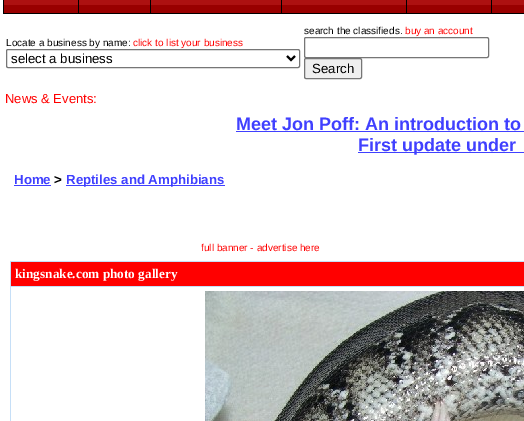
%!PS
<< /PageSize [524 421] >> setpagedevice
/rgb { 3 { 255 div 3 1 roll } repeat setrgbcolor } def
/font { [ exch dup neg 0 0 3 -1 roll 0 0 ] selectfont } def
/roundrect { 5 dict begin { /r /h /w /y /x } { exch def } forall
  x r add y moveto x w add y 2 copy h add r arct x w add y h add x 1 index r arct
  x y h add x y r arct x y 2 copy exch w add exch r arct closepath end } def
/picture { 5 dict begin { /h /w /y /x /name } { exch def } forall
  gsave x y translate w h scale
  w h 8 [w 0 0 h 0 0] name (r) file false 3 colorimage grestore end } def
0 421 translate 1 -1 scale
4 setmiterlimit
255 255 255 rgb
0 0 524 421 rectfill
(img/1.rgb) 4 0 520 14 picture
[
  [3 0 1 14 0 0 0]
  [78 0 1 14 0 0 0]
  [150 0 1 14 0 0 0]
  [281 0 1 14 0 0 0]
  [406 0 1 14 0 0 0]
  [491 0 1 14 0 0 0]
] { aload pop rgb rectfill } forall
118 118 118 rgb
6.5 49.5 293 18 1.5 roundrect stroke
0 0 0 rgb
2 setlinewidth
287 56 moveto 291 60 lineto 295 56 lineto stroke
118 118 118 rgb
1 setlinewidth
304.5 37.5 184 20 1.5 roundrect stroke
239 239 239 rgb
304.5 58.5 57 20 1.5 roundrect gsave fill grestore
118 118 118 rgb
stroke
[
  [236 131 288 1 64 64 255]
  [358 152 166 1 64 64 255]
  [14 185 37 1 64 64 255]
  [66 185 159 1 64 64 255]
  [10 261 514 160 198 223 247]
  [11 262 513 24 255 0 0]
  [11 287 513 134 255 255 255]
] { aload pop rgb rectfill } forall
(img/2.rgb) 205 291 319 130 picture
/LiberationSans-Regular 10 font
0 0 0 rgb
6 46 moveto (Locate a business by name:) show
255 0 0 rgb
133 46 moveto (click to list your business) show
/LiberationSans-Regular 13.25 font
0 0 0 rgb
11 63 moveto (select a business) show
/LiberationSans-Regular 10 font
304 34 moveto (search the classifieds.) show
255 0 0 rgb
405 34 moveto (buy an account) show
/LiberationSans-Regular 13.25 font
0 0 0 rgb
312 73 moveto (Search) show
/LiberationSans-Regular 13 font
255 0 0 rgb
5 103 moveto (News & Events:) show
/LiberationSans-Bold 18 font
64 64 255 rgb
236 130 moveto (Meet Jon Poff: An introduction to) show
358 151 moveto (First update under) show
/LiberationSans-Bold 13.25 font
14 184 moveto (Home) show
0 0 0 rgb
54 184 moveto (>) show
64 64 255 rgb
66 184 moveto (Reptiles and Amphibians) show
/LiberationSans-Regular 10 font
255 0 0 rgb
201 251 moveto (full banner - advertise here) show
/LiberationSerif-Bold 13.25 font
255 255 255 rgb
15 278 moveto (kingsnake.com photo gallery) show
showpage
